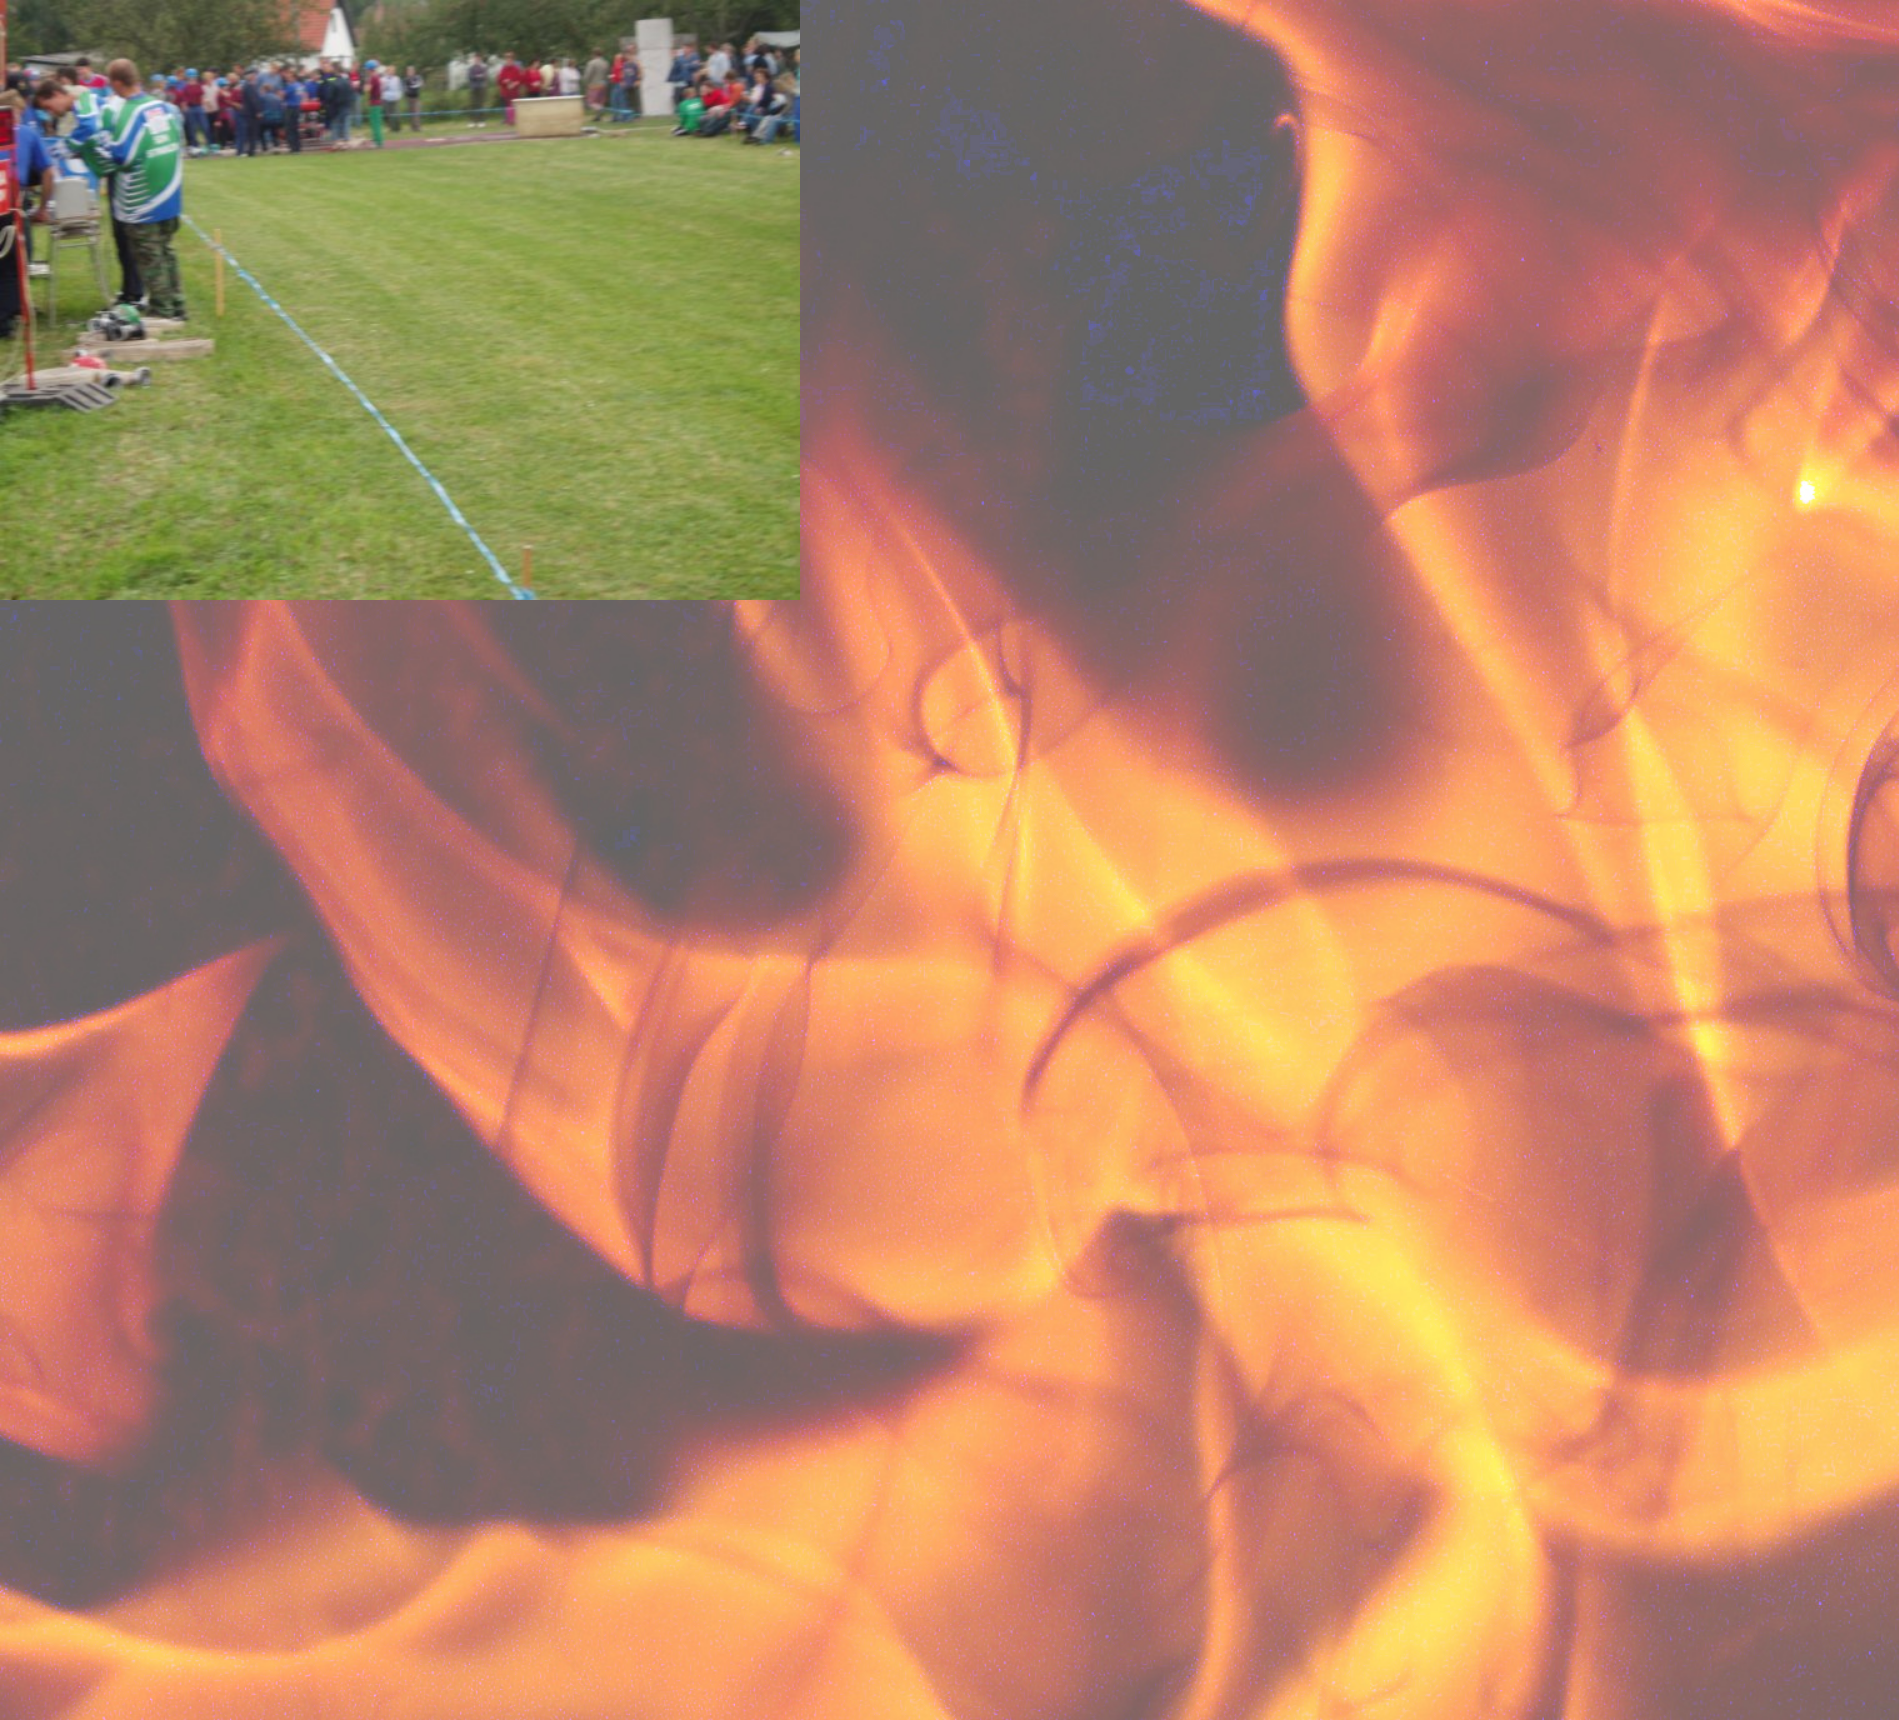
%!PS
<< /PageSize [1899 1720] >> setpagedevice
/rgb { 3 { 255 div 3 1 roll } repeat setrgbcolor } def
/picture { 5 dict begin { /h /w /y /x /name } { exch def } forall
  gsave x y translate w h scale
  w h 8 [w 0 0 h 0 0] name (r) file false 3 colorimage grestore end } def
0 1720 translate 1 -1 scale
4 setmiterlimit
255 255 255 rgb
0 0 1899 1720 rectfill
(img/1.rgb) 0 0 1899 1720 picture
(img/2.rgb) 0 0 800 600 picture
showpage
